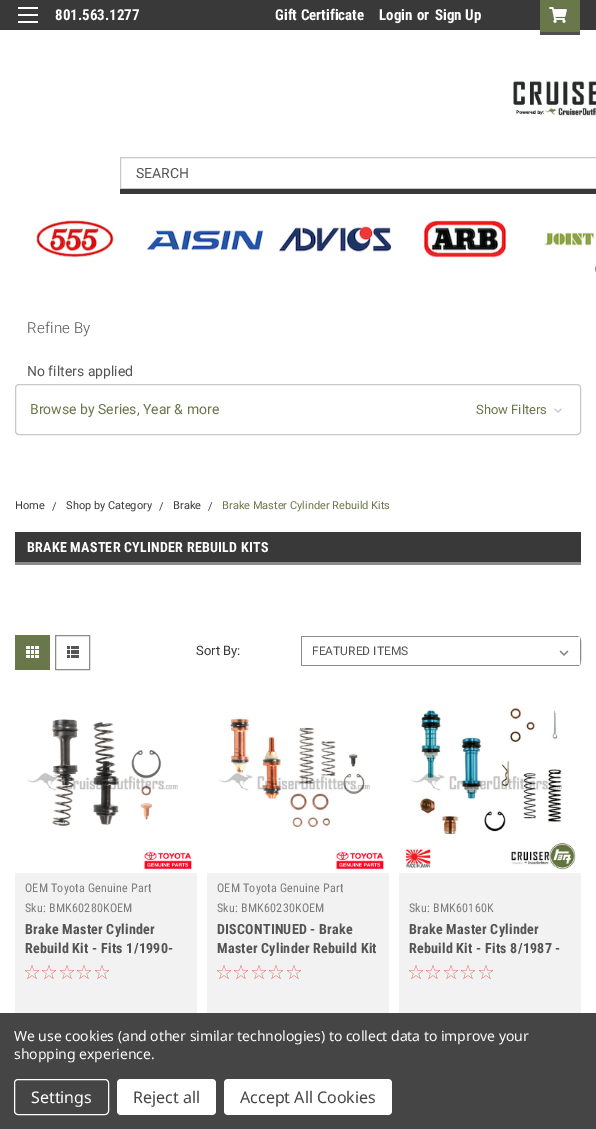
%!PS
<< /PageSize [596 1129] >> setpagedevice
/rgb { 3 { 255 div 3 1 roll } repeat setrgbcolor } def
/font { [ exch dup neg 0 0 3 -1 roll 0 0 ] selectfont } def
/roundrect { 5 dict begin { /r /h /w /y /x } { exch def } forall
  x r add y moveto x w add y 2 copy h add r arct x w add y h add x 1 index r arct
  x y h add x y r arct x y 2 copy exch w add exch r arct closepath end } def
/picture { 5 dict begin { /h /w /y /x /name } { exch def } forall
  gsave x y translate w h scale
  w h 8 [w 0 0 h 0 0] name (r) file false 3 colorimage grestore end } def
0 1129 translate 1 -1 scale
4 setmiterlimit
255 255 255 rgb
0 0 596 1129 rectfill
[
  [0 0 596 30 57 57 57]
  [18 14 20 2 255 255 255]
  [18 7 20 2 255 255 255]
  [18 21 20 2 255 255 255]
  [540 0 40 32 105 119 75]
  [540 32 40 3 79 79 79]
] { aload pop rgb rectfill } forall
(img/1.rgb) 549 7 18 16 picture
(img/2.rgb) 512 80 84 36 picture
202 201 201 rgb
120.5 157.5 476 31 rectstroke
57 57 57 rgb
120 189 476 5 rectfill
(img/3.rgb) 36 220 78 38 picture
(img/4.rgb) 146 230 118 21 picture
(img/5.rgb) 279 226 113 27 picture
(img/6.rgb) 423 220 84 38 picture
(img/7.rgb) 544 232 51 14 picture
134 151 145 rgb
595 264 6 10 5 roundrect fill
202 201 201 rgb
15.5 384.5 565 50 3.5 roundrect stroke
(img/8.rgb) 554 408 8 5 picture
[
  [15 532 566 30 57 57 57]
  [15 562 566 3 139 139 139]
  [15 635 35 35 105 119 75]
] { aload pop rgb rectfill } forall
(img/9.rgb) 26 646 13 12 picture
139 139 139 rgb
55.5 635.5 34 34 rectstroke
(img/10.rgb) 67 646 12 12 picture
(img/11.rgb) 559 650 10 6 picture
301 636 moveto 301 666 lineto 577 666 lineto 578 666 579 666 580 665 curveto 302 665 lineto 302 637 lineto 580 637 lineto 577 636 lineto closepath 581 640 moveto 580 637 lineto 580 665 lineto 582 662 581 644 581 640 curveto closepath eofill
242 242 242 rgb
15 873 182 140 rectfill
(img/12.rgb) 27 719 165 151 picture
(img/13.rgb) 25 965 14 14 picture
(img/13.rgb) 42 965 14 14 picture
(img/13.rgb) 60 965 14 14 picture
(img/13.rgb) 77 965 14 14 picture
(img/13.rgb) 95 965 14 14 picture
207 873 182 140 rectfill
(img/14.rgb) 218 718 166 152 picture
(img/13.rgb) 217 965 14 14 picture
(img/13.rgb) 234 965 14 14 picture
(img/13.rgb) 252 965 14 14 picture
(img/13.rgb) 269 965 14 14 picture
(img/13.rgb) 287 965 14 14 picture
399 873 182 140 rectfill
(img/15.rgb) 405 708 171 162 picture
(img/13.rgb) 409 965 14 14 picture
(img/13.rgb) 426 965 14 14 picture
(img/13.rgb) 444 965 14 14 picture
(img/13.rgb) 461 965 14 14 picture
(img/13.rgb) 479 965 14 14 picture
69 69 69 rgb
0 1013 596 116 rectfill
255 255 255 rgb
14.5 1079.5 94 35 3.5 roundrect stroke
117 1079 99 36 4 roundrect fill
224 1079 168 36 4 roundrect fill
/RobotoCondensed-Bold 15 font
[
  [(801.563.1277) 55 20]
  [(Gift Certificate) 275 20]
  [(Login) 379 20]
  [(or) 417 20]
  [(Sign Up) 435 20]
] { aload pop moveto show } forall
/Roboto-Regular 14 font
84 84 84 rgb
136 178 moveto (SEARCH) show
/Roboto-Light 15 font
27 333 moveto 0.25 0 (Refine By) ashow
/Roboto-Regular 14 font
27 376 moveto (No filters applied) show
105 119 75 rgb
30 414 moveto (Browse by Series, Year & more) show
/Roboto-Regular 13 font
476 414 moveto (Show Filters) show
/Roboto-Regular 11 font
57 57 57 rgb
[
  [(Home) 15 509]
  [(/) 52 510]
  [(Shop by Category) 66 509]
  [(/) 159 510]
  [(Brake) 173 509]
  [(/) 208 510]
] { aload pop moveto show } forall
105 119 75 rgb
222 509 moveto (Brake Master Cylinder Rebuild Kits) show
/RobotoCondensed-Bold 14 font
255 255 255 rgb
27 552 moveto 0.25 0 (BRAKE MASTER CYLINDER REBUILD KITS) ashow
/Roboto-Regular 13 font
57 57 57 rgb
196 655 moveto (Sort By:) show
/Roboto-Regular 12 font
84 84 84 rgb
312 655 moveto (FEATURED ITEMS) show
/RobotoCondensed-Regular 12 font
123 123 123 rgb
25 892 moveto 0.25 0 (OEM Toyota Genuine Part) ashow
25 912 moveto 0.25 0 (Sku: BMK60280KOEM) ashow
/RobotoCondensed-Bold 14 font
84 84 84 rgb
25 934 moveto 0.25 0 (Brake Master Cylinder) ashow
25 953 moveto 0.25 0 (Rebuild Kit - Fits 1/1990-) ashow
/RobotoCondensed-Regular 12 font
123 123 123 rgb
217 892 moveto 0.25 0 (OEM Toyota Genuine Part) ashow
217 912 moveto 0.25 0 (Sku: BMK60230KOEM) ashow
/RobotoCondensed-Bold 14 font
84 84 84 rgb
217 934 moveto 0.25 0 (DISCONTINUED - Brake) ashow
217 953 moveto 0.25 0 (Master Cylinder Rebuild Kit) ashow
/RobotoCondensed-Regular 12 font
123 123 123 rgb
409 912 moveto 0.25 0 (Sku: BMK60160K) ashow
/RobotoCondensed-Bold 14 font
84 84 84 rgb
409 934 moveto 0.25 0 (Brake Master Cylinder) ashow
409 953 moveto 0.25 0 (Rebuild Kit - Fits 8/1987 -) ashow
/NotoSans-Regular 14 font
255 255 255 rgb
14 1041 moveto -0.05 0 (We use cookies \(and other similar technologies\) to collect data to improve your) ashow
14 1059 moveto -0.05 0 (shopping experience.) ashow
/NotoSans-Regular 16 font
31 1103 moveto (Settings) show
69 69 69 rgb
133 1103 moveto (Reject all) show
240 1103 moveto (Accept All Cookies) show
showpage
